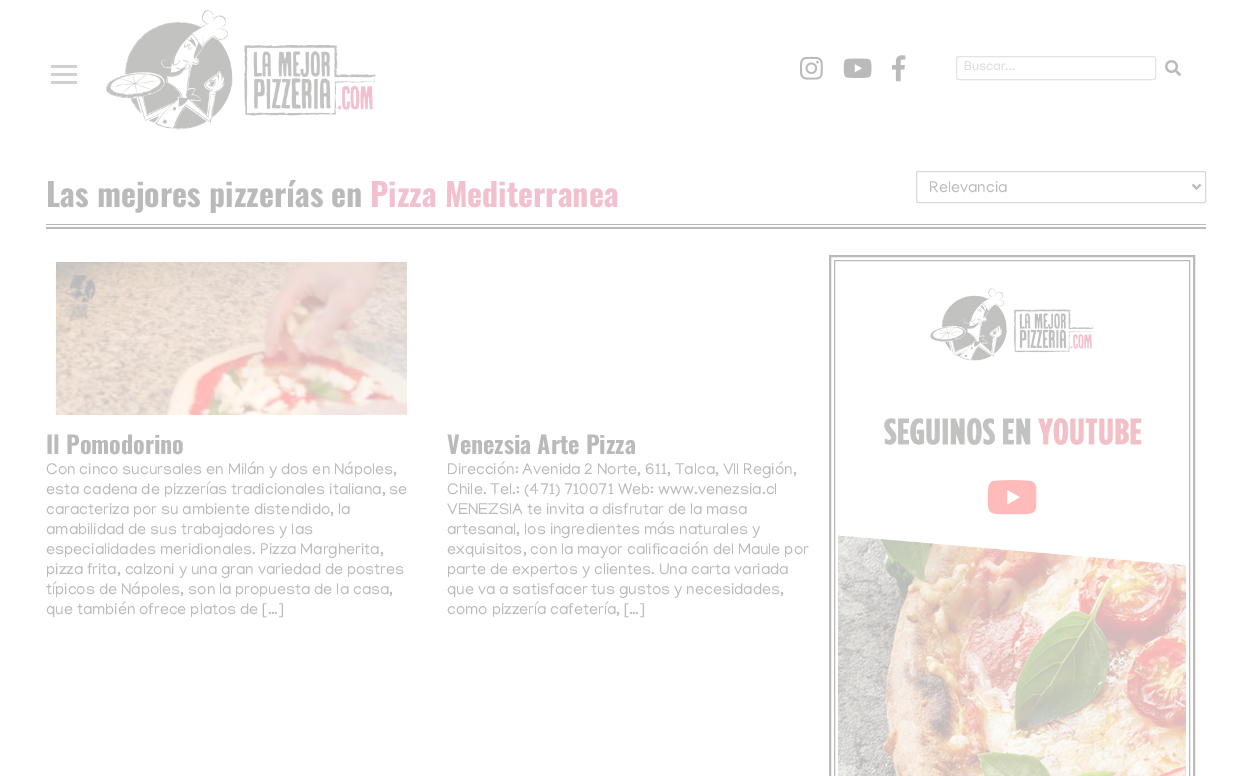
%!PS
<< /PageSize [1251 776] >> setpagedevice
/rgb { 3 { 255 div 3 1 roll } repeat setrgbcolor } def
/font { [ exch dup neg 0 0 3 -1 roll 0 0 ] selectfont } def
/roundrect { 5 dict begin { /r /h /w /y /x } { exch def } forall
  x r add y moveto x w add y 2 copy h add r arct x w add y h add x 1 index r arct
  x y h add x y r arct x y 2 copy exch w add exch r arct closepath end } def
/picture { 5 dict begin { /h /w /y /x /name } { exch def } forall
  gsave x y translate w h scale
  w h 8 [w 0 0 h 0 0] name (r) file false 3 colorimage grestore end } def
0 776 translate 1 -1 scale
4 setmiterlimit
255 255 255 rgb
0 0 1251 776 rectfill
[
  [51 65 26 3 208 208 208]
  [51 73 26 3 208 208 208]
  [51 81 26 3 208 208 208]
] { aload pop rgb rectfill } forall
(img/1.rgb) 106 10 270 120 picture
(img/2.rgb) 800 56 23 24 picture
(img/3.rgb) 843 58 29 20 picture
(img/4.rgb) 892 55 14 27 picture
227 227 227 rgb
956.5 56.5 199 23 2.5 roundrect stroke
(img/5.rgb) 1165 60 16 16 picture
186 186 186 rgb
46 224 1160 1 rectfill
218 218 218 rgb
916.5 171.5 289 31 1.5 roundrect stroke
186 186 186 rgb
2 setlinewidth
1192.5 184.5 moveto 1196.5 188.5 lineto 1200.5 184.5 lineto stroke
46 227 1160 2 rectfill
(img/6.rgb) 56 262 351 153 picture
830 256 364 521 rectstroke
1 setlinewidth
834.5 260.5 355 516 rectstroke
(img/7.rgb) 838 288 348 488 picture
/Manjari-Regular 13 font
218 218 218 rgb
964 70 moveto (Buscar...) show
/Oswald-Bold 32 font
186 186 186 rgb
46 207 moveto (Las mejores pizzerías en) show
242 192 207 rgb
370 207 moveto (Pizza Mediterranea) show
/Manjari-Regular 16 font
186 186 186 rgb
929 192 moveto (Relevancia) show
/Oswald-Bold 24 font
46 454 moveto (Il Pomodorino) show
/Manjari-Regular 16 font
[
  [(Con cinco sucursales en Milán y dos en Nápoles,) 46 474]
  [(esta cadena de pizzerías tradicionales italiana, se) 46 494]
  [(caracteriza por su ambiente distendido, la) 46 514]
  [(amabilidad de sus trabajadores y las) 46 534]
  [(especialidades meridionales. Pizza Margherita,) 46 554]
  [(pizza frita, calzoni y una gran variedad de postres) 46 574]
  [(típicos de Nápoles, son la propuesta de la casa,) 46 594]
  [(que también ofrece platos de […]) 46 614]
] { aload pop moveto show } forall
/Oswald-Bold 24 font
447 454 moveto (Venezsia Arte Pizza) show
/Manjari-Regular 16 font
[
  [(Dirección: Avenida 2 Norte, 611, Talca, VII Región,) 447 474]
  [(Chile. Tel.: \(471\) 710071 Web: www.venezsia.cl) 447 494]
  [(VENEZSIA te invita a disfrutar de la masa) 447 514]
  [(artesanal, los ingredientes más naturales y) 447 534]
  [(exquisitos, con la mayor calificación del Maule por) 447 554]
  [(parte de expertos y clientes. Una carta variada) 447 574]
  [(que va a satisfacer tus gustos y necesidades,) 447 594]
  [(como pizzería cafetería, […]) 447 614]
] { aload pop moveto show } forall
showpage
